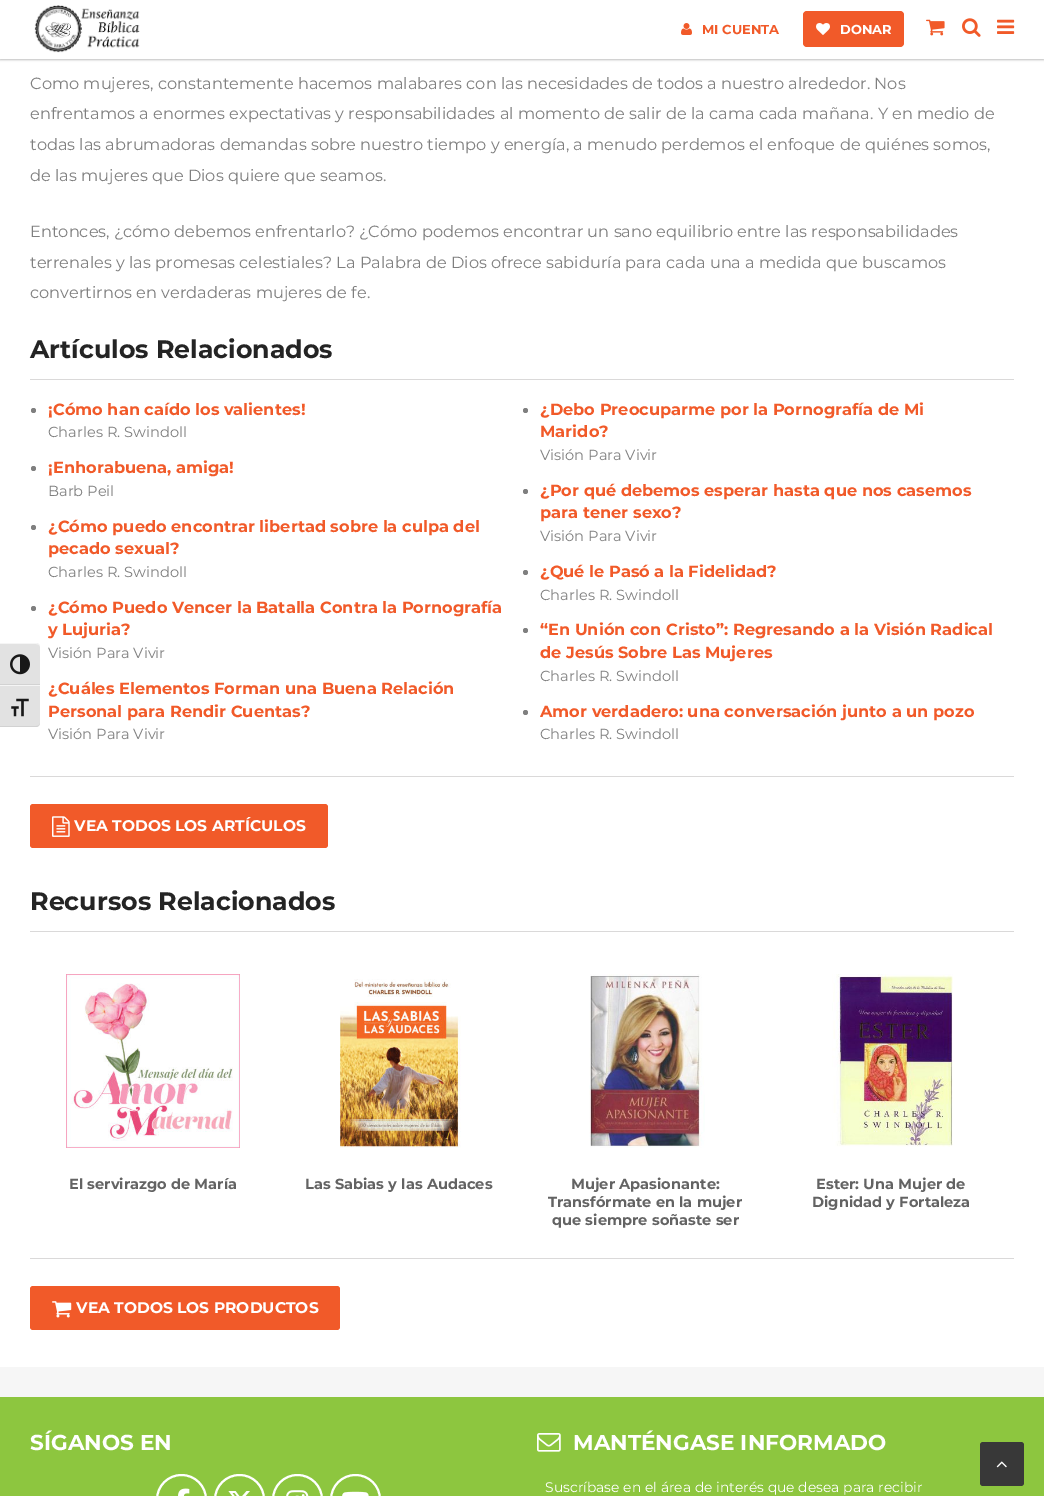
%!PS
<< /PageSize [1044 1496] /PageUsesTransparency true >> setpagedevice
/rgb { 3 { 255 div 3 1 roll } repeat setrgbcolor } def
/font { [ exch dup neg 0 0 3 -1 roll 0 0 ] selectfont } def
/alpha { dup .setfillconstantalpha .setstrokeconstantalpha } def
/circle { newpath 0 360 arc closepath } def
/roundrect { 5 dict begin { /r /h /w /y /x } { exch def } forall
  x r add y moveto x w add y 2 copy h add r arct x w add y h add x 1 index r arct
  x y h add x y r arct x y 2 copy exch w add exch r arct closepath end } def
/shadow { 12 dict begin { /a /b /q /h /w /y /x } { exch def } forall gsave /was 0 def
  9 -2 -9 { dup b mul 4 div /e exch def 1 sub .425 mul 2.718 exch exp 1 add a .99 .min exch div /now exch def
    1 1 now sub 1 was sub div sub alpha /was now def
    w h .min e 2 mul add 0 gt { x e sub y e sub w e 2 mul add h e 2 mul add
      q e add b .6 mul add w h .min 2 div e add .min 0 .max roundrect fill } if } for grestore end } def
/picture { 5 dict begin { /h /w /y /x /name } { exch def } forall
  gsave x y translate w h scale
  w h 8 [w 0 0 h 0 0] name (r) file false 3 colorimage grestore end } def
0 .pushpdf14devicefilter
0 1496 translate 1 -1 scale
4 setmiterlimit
255 255 255 rgb
0 0 1044 1496 rectfill
226 226 226 rgb
0 643 moveto 36 643 lineto 38 643 40 645 40 647 curveto 40 685 lineto 0 685 lineto closepath fill
245 245 245 rgb
0 643 moveto 0 644 lineto 36 644 lineto 38 644 40 645 40 647 curveto 40 645 38 643 36 643 curveto closepath fill
210 210 210 rgb
0 684 40 1 rectfill
(img/1.rgb) 10 654 20 21 picture
226 226 226 rgb
0 685 moveto 40 685 lineto 40 723 lineto 40 725 38 727 36 727 curveto 0 727 lineto closepath fill
245 245 245 rgb
0 685 40 1 rectfill
210 210 210 rgb
0 726 moveto 0 727 lineto 36 727 lineto 38 727 40 725 40 723 curveto 40 725 38 726 36 726 curveto closepath fill
(img/2.rgb) 11 698 18 19 picture
0 0 0 rgb
0 0 1044 60 0 1 0.25 shadow
255 255 255 rgb
0 0 1044 59 rectfill
(img/3.rgb) 34 5 106 48 picture
(img/4.rgb) 681 23 11 12 picture
241 90 41 rgb
803 11 101 36 4 roundrect fill
(img/5.rgb) 816 23 14 12 picture
(img/6.rgb) 926 19 19 17 picture
(img/7.rgb) 962 18 19 19 picture
(img/8.rgb) 997 19 18 15 picture
218 217 217 rgb
30 379 984 1 rectfill
30 776 984 1 rectfill
127 127 127 rgb
33.5 410.5 2.5 circle fill
525.5 410.5 2.5 circle fill
33.5 468.5 2.5 circle fill
525.5 491.5 2.5 circle fill
33.5 527.5 2.5 circle fill
525.5 572.5 2.5 circle fill
33.5 608.5 2.5 circle fill
525.5 630.5 2.5 circle fill
525.5 712.5 2.5 circle fill
241 90 41 rgb
30 804 298 44 3 roundrect fill
(img/9.rgb) 52 816 18 21 picture
218 217 217 rgb
30 931 984 1 rectfill
30 1258 984 1 rectfill
(img/10.rgb) 66 974 174 174 picture
(img/11.rgb) 340 979 121 169 picture
(img/12.rgb) 589 974 116 174 picture
(img/13.rgb) 832 974 121 173 picture
241 90 41 rgb
30 1286 310 44 3 roundrect fill
(img/14.rgb) 52 1301 20 17 picture
141 198 63 rgb
0 1397 1044 99 rectfill
246 246 246 rgb
0 1367 1044 30 rectfill
255 255 255 rgb
2 setlinewidth
157 1475 49 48 24.5 roundrect stroke
(img/15.rgb) 178 1488 12 8 picture
215 1475 49 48 24.5 roundrect stroke
(img/16.rgb) 228 1491 22 5 picture
273 1475 49 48 24.5 roundrect stroke
(img/17.rgb) 286 1490 23 6 picture
331 1475 49 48 24.5 roundrect stroke
(img/18.rgb) 342 1491 27 5 picture
(img/19.rgb) 537 1433 24 19 picture
56 56 56 rgb
980 1442 44 44 3 roundrect fill
(img/20.rgb) 996 1461 11 7 picture
/Montserrat-Bold 13 font
241 90 41 rgb
702 34 moveto (MI CUENTA) show
255 255 255 rgb
840 34 moveto (DONAR) show
/Montserrat-Regular 16.2 font
127 127 127 rgb
[
  [(Como mujeres, constantemente hacemos malabares con las necesidades de todos a nuestro alrededor. Nos) 30 89]
  [(enfrentamos a enormes expectativas y responsabilidades al momento de salir de la cama cada mañana. Y en medio de) 30 119]
  [(todas las abrumadoras demandas sobre nuestro tiempo y energía, a menudo perdemos el enfoque de quiénes somos,) 30 150]
  [(de las mujeres que Dios quiere que seamos.) 30 181]
  [(Entonces, ¿cómo debemos enfrentarlo? ¿Cómo podemos encontrar un sano equilibrio entre las responsabilidades) 30 237]
  [(terrenales y las promesas celestiales? La Palabra de Dios ofrece sabiduría para cada una a medida que buscamos) 30 268]
  [(convertirnos en verdaderas mujeres de fe.) 30 298]
] { aload pop moveto show } forall
/Montserrat-Bold 25.25 font
36 36 36 rgb
30 358 moveto (Artículos Relacionados) show
/Montserrat-Bold 16.2 font
241 90 41 rgb
48 415 moveto (¡Cómo han caído los valientes!) show
/Montserrat-Regular 14.6 font
127 127 127 rgb
48 437 moveto (Charles R. Swindoll) show
/Montserrat-Bold 16.2 font
241 90 41 rgb
540 415 moveto (¿Debo Preocuparme por la Pornografía de Mi) show
540 437 moveto (Marido?) show
/Montserrat-Regular 14.6 font
127 127 127 rgb
540 460 moveto (Visión Para Vivir) show
/Montserrat-Bold 16.2 font
241 90 41 rgb
48 473 moveto (¡Enhorabuena, amiga!) show
/Montserrat-Regular 14.6 font
127 127 127 rgb
48 496 moveto (Barb Peil) show
/Montserrat-Bold 16.2 font
241 90 41 rgb
540 496 moveto (¿Por qué debemos esperar hasta que nos casemos) show
540 518 moveto (para tener sexo?) show
/Montserrat-Regular 14.6 font
127 127 127 rgb
540 541 moveto (Visión Para Vivir) show
/Montserrat-Bold 16.2 font
241 90 41 rgb
48 532 moveto (¿Cómo puedo encontrar libertad sobre la culpa del) show
48 554 moveto (pecado sexual?) show
/Montserrat-Regular 14.6 font
127 127 127 rgb
48 577 moveto (Charles R. Swindoll) show
/Montserrat-Bold 16.2 font
241 90 41 rgb
540 577 moveto (¿Qué le Pasó a la Fidelidad?) show
/Montserrat-Regular 14.6 font
127 127 127 rgb
540 600 moveto (Charles R. Swindoll) show
/Montserrat-Bold 16.2 font
241 90 41 rgb
48 613 moveto (¿Cómo Puedo Vencer la Batalla Contra la Pornografía) show
48 635 moveto (y Lujuria?) show
/Montserrat-Regular 14.6 font
127 127 127 rgb
48 658 moveto (Visión Para Vivir) show
/Montserrat-Bold 16.2 font
241 90 41 rgb
540 635 moveto (“En Unión con Cristo”: Regresando a la Visión Radical) show
540 658 moveto (de Jesús Sobre Las Mujeres) show
/Montserrat-Regular 14.6 font
127 127 127 rgb
540 681 moveto (Charles R. Swindoll) show
/Montserrat-Bold 16.2 font
241 90 41 rgb
48 694 moveto (¿Cuáles Elementos Forman una Buena Relación) show
48 717 moveto (Personal para Rendir Cuentas?) show
/Montserrat-Regular 14.6 font
127 127 127 rgb
48 739 moveto (Visión Para Vivir) show
/Montserrat-Bold 16.2 font
241 90 41 rgb
540 717 moveto (Amor verdadero: una conversación junto a un pozo) show
/Montserrat-Regular 14.6 font
127 127 127 rgb
540 739 moveto (Charles R. Swindoll) show
/Montserrat-Bold 15.5 font
255 255 255 rgb
74 831 moveto (VEA TODOS LOS ARTÍCULOS) show
/Montserrat-Bold 25.25 font
36 36 36 rgb
30 910 moveto (Recursos Relacionados) show
/Montserrat-Bold 14.6 font
99 99 99 rgb
[
  [(El servirazgo de María) 69 1189]
  [(Las Sabias y las Audaces) 305 1189]
  [(Mujer Apasionante:) 571 1189]
  [(Transfórmate en la mujer) 548 1207]
  [(que siempre soñaste ser) 552 1225]
  [(Ester: Una Mujer de) 816 1189]
  [(Dignidad y Fortaleza) 812 1207]
] { aload pop moveto show } forall
/Montserrat-Bold 15.5 font
255 255 255 rgb
76 1313 moveto (VEA TODOS LOS PRODUCTOS) show
/Montserrat-Bold 21.6 font
30 1450 moveto (SÍGANOS EN) show
573 1450 moveto (MANTÉNGASE INFORMADO) show
/Montserrat-Regular 13.9 font
545 1492 moveto (Suscríbase en el área de interés que desea para recibir) show
.poppdf14devicefilter showpage
